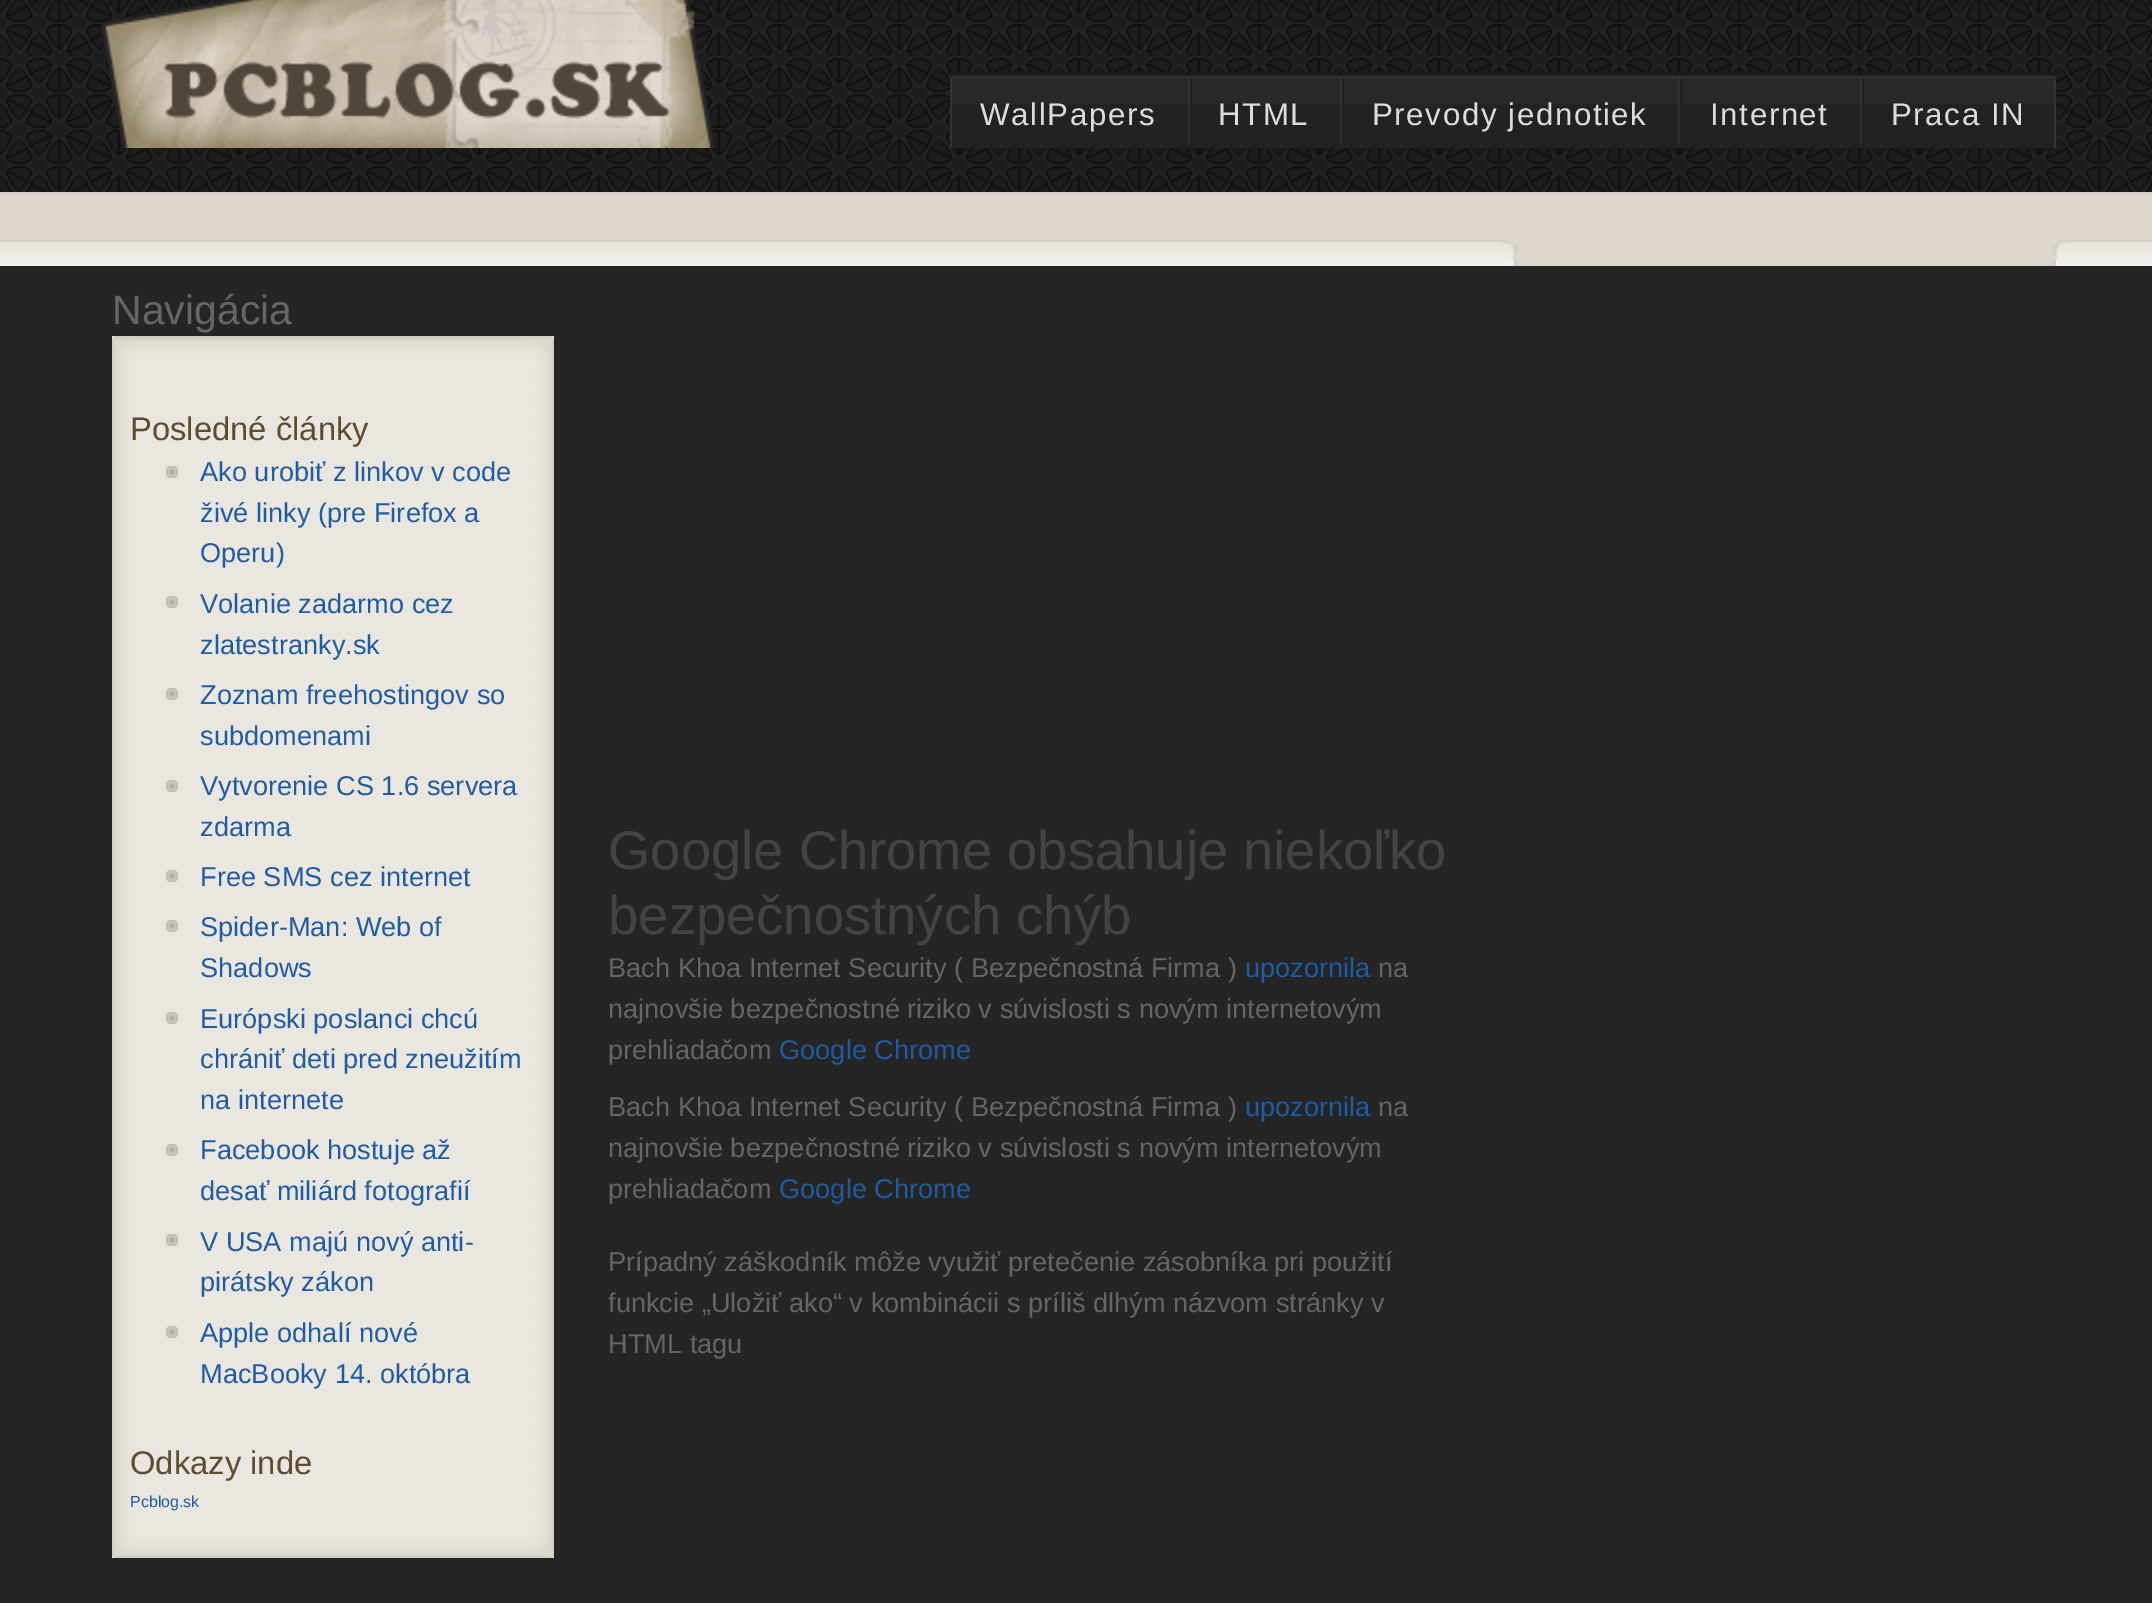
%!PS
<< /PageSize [2152 1603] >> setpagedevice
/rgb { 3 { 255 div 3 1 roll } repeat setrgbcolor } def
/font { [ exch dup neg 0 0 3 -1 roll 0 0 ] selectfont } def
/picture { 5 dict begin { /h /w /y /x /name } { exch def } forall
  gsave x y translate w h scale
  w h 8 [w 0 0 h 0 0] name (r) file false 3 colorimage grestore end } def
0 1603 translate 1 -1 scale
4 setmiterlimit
37 37 37 rgb
0 0 2152 1603 rectfill
(img/1.rgb) 0 0 2152 192 picture
(img/2.rgb) 101 0 614 148 picture
(img/3.rgb) 950 72 1106 76 picture
(img/4.rgb) 950 76 2 72 picture
(img/5.rgb) 1188 78 4 66 picture
(img/5.rgb) 1340 78 4 66 picture
(img/5.rgb) 1678 78 4 66 picture
(img/5.rgb) 1860 78 4 66 picture
(img/4.rgb) 2054 76 2 72 picture
(img/6.rgb) 0 192 2152 50 picture
(img/7.rgb) 0 242 2152 24 picture
(img/8.rgb) 1514 260 542 6 picture
(img/9.rgb) 1502 240 570 20 picture
(img/10.rgb) 1514 244 542 14 picture
(img/11.rgb) 112 1536 442 22 picture
(img/12.rgb) 112 336 442 20 picture
(img/13.rgb) 112 356 442 1180 picture
(img/14.rgb) 166 466 12 12 picture
(img/15.rgb) 166 596 12 12 picture
(img/16.rgb) 166 688 12 12 picture
(img/17.rgb) 166 780 12 12 picture
(img/18.rgb) 166 870 12 12 picture
(img/15.rgb) 166 920 12 12 picture
(img/16.rgb) 166 1012 12 12 picture
(img/16.rgb) 166 1144 12 12 picture
(img/14.rgb) 166 1234 12 12 picture
(img/18.rgb) 166 1326 12 12 picture
/LiberationSans-Regular 31.25 font
221 221 221 rgb
980 125 moveto 1.6 0 (WallPapers) ashow
1218 125 moveto 1.6 0 (HTML) ashow
1372 125 moveto 1.6 0 (Prevody jednotiek) ashow
1710 125 moveto 1.6 0 (Internet) ashow
1891 125 moveto 1.6 0 (Praca IN) ashow
/LiberationSans-Regular 41 font
102 102 102 rgb
112 324 moveto (Navigácia) show
/LiberationSans-Regular 32.75 font
92 76 48 rgb
130 440 moveto (Posledné články) show
/LiberationSans-Regular 27.2 font
31 92 161 rgb
[
  [(Ako urobiť z linkov v code) 200 481]
  [(živé linky \(pre Firefox a) 200 522]
  [(Operu\)) 200 562]
  [(Volanie zadarmo cez) 200 613]
  [(zlatestranky.sk) 200 654]
  [(Zoznam freehostingov so) 200 704]
  [(subdomenami) 200 745]
  [(Vytvorenie CS 1.6 servera) 200 795]
  [(zdarma) 200 836]
  [(Free SMS cez internet) 200 886]
  [(Spider-Man: Web of) 200 936]
  [(Shadows) 200 977]
  [(Európski poslanci chcú) 200 1028]
  [(chrániť deti pred zneužitím) 200 1068]
  [(na internete) 200 1109]
  [(Facebook hostuje až) 200 1159]
  [(desať miliárd fotografií) 200 1200]
  [(V USA majú nový anti-) 200 1251]
  [(pirátsky zákon) 200 1291]
  [(Apple odhalí nové) 200 1342]
  [(MacBooky 14. októbra) 200 1383]
] { aload pop moveto show } forall
/LiberationSans-Regular 32.75 font
92 76 48 rgb
130 1474 moveto (Odkazy inde) show
/LiberationSans-Regular 16 font
31 92 161 rgb
130 1507 moveto (Pcblog.sk) show
/LiberationSans-Regular 54.4 font
68 68 68 rgb
608 869 moveto (Google Chrome obsahuje niekoľko) show
608 934 moveto (bezpečnostných chýb) show
/LiberationSans-Regular 27.2 font
102 102 102 rgb
608 977 moveto (Bach Khoa Internet Security \( Bezpečnostná Firma \)) show
31 92 161 rgb
1245 977 moveto (upozornila) show
102 102 102 rgb
[
  [(na) 1378 977]
  [(najnovšie bezpečnostné riziko v súvislosti s novým internetovým) 608 1018]
  [(prehliadačom) 608 1059]
] { aload pop moveto show } forall
31 92 161 rgb
779 1059 moveto (Google Chrome) show
102 102 102 rgb
608 1116 moveto (Bach Khoa Internet Security \( Bezpečnostná Firma \)) show
31 92 161 rgb
1245 1116 moveto (upozornila) show
102 102 102 rgb
[
  [(na) 1378 1116]
  [(najnovšie bezpečnostné riziko v súvislosti s novým internetovým) 608 1157]
  [(prehliadačom) 608 1198]
] { aload pop moveto show } forall
31 92 161 rgb
779 1198 moveto (Google Chrome) show
102 102 102 rgb
[
  [(Prípadný záškodník môže využiť pretečenie zásobníka pri použití) 608 1271]
  [(funkcie „Uložiť ako“ v kombinácii s príliš dlhým názvom stránky v) 608 1312]
  [(HTML tagu) 608 1353]
] { aload pop moveto show } forall
showpage
